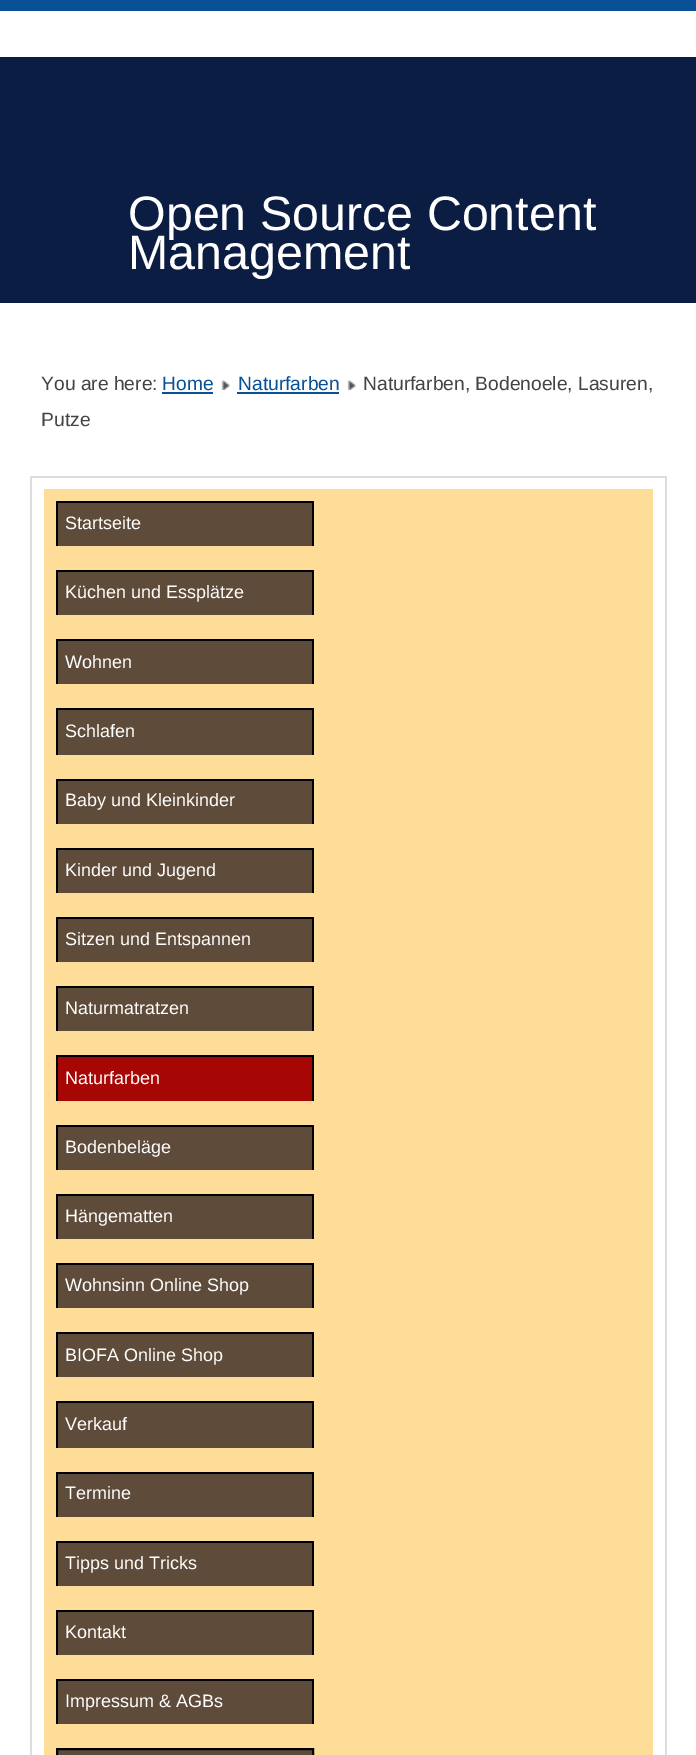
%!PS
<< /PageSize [696 1755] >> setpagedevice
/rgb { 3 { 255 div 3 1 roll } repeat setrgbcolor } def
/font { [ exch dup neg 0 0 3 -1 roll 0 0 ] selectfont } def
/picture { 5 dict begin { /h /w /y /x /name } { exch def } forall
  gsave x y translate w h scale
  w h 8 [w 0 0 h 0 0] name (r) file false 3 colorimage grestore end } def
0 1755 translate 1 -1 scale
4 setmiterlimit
255 255 255 rgb
0 0 696 1755 rectfill
[
  [0 0 696 11 9 81 151]
  [0 57 696 246 12 29 67]
  [162 392 51 2 9 81 151]
] { aload pop rgb rectfill } forall
(img/1.rgb) 221 379 9 11 picture
237 392 102 2 rectfill
(img/2.rgb) 347 379 9 11 picture
[
  [30 476 636 2 221 221 221]
  [665 476 2 1279 221 221 221]
  [30 476 2 1279 221 221 221]
  [44 489 609 1266 254 221 152]
  [58 503 254 43 94 75 58]
  [56 501 258 2 0 0 0]
  [312 501 2 45 0 0 0]
  [56 501 2 45 0 0 0]
  [58 572 254 43 94 75 58]
  [56 570 258 2 0 0 0]
  [312 570 2 45 0 0 0]
  [56 570 2 45 0 0 0]
  [58 641 254 43 94 75 58]
  [56 639 258 2 0 0 0]
  [312 639 2 45 0 0 0]
  [56 639 2 45 0 0 0]
  [58 710 254 45 94 75 58]
  [56 708 258 2 0 0 0]
  [312 708 2 47 0 0 0]
  [56 708 2 47 0 0 0]
  [58 781 254 43 94 75 58]
  [56 779 258 2 0 0 0]
  [312 779 2 45 0 0 0]
  [56 779 2 45 0 0 0]
  [58 850 254 43 94 75 58]
  [56 848 258 2 0 0 0]
  [312 848 2 45 0 0 0]
  [56 848 2 45 0 0 0]
  [58 919 254 43 94 75 58]
  [56 917 258 2 0 0 0]
  [312 917 2 45 0 0 0]
  [56 917 2 45 0 0 0]
  [58 988 254 43 94 75 58]
  [56 986 258 2 0 0 0]
  [312 986 2 45 0 0 0]
  [56 986 2 45 0 0 0]
  [58 1057 254 44 166 7 5]
  [56 1055 258 2 0 0 0]
  [312 1055 2 46 0 0 0]
  [56 1055 2 46 0 0 0]
  [58 1127 254 43 94 75 58]
  [56 1125 258 2 0 0 0]
  [312 1125 2 45 0 0 0]
  [56 1125 2 45 0 0 0]
  [58 1196 254 43 94 75 58]
  [56 1194 258 2 0 0 0]
  [312 1194 2 45 0 0 0]
  [56 1194 2 45 0 0 0]
  [58 1265 254 43 94 75 58]
  [56 1263 258 2 0 0 0]
  [312 1263 2 45 0 0 0]
  [56 1263 2 45 0 0 0]
  [58 1334 254 43 94 75 58]
  [56 1332 258 2 0 0 0]
  [312 1332 2 45 0 0 0]
  [56 1332 2 45 0 0 0]
  [58 1403 254 45 94 75 58]
  [56 1401 258 2 0 0 0]
  [312 1401 2 47 0 0 0]
  [56 1401 2 47 0 0 0]
  [58 1474 254 43 94 75 58]
  [56 1472 258 2 0 0 0]
  [312 1472 2 45 0 0 0]
  [56 1472 2 45 0 0 0]
  [58 1543 254 43 94 75 58]
  [56 1541 258 2 0 0 0]
  [312 1541 2 45 0 0 0]
  [56 1541 2 45 0 0 0]
  [58 1612 254 43 94 75 58]
  [56 1610 258 2 0 0 0]
  [312 1610 2 45 0 0 0]
  [56 1610 2 45 0 0 0]
  [58 1681 254 43 94 75 58]
  [56 1679 258 2 0 0 0]
  [312 1679 2 45 0 0 0]
  [56 1679 2 45 0 0 0]
] { aload pop rgb rectfill } forall
94 75 58 rgb
57 1749 moveto 313 1749 lineto 313 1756 lineto 57 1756 lineto closepath gsave fill grestore
0 0 0 rgb
2 setlinewidth
stroke
/LiberationSans-Regular 48.4 font
255 255 255 rgb
128 230 moveto (Open Source Content) show
128 269 moveto (Management) show
/LiberationSans-Regular 19.25 font
68 68 68 rgb
41 390 moveto (You are here:) show
9 81 151 rgb
162 390 moveto (Home) show
238 390 moveto (Naturfarben) show
68 68 68 rgb
363 390 moveto (Naturfarben, Bodenoele, Lasuren,) show
41 426 moveto (Putze) show
/LiberationSans-Regular 18 font
255 255 255 rgb
[
  [(Startseite) 65 529]
  [(Küchen und Essplätze) 65 598]
  [(Wohnen) 65 668]
  [(Schlafen) 65 737]
  [(Baby und Kleinkinder) 65 806]
  [(Kinder und Jugend) 65 876]
  [(Sitzen und Entspannen) 65 945]
  [(Naturmatratzen) 65 1014]
  [(Naturfarben) 65 1084]
  [(Bodenbeläge) 65 1153]
  [(Hängematten) 65 1222]
  [(Wohnsinn Online Shop) 65 1291]
  [(BIOFA Online Shop) 65 1361]
  [(Verkauf) 65 1430]
  [(Termine) 65 1499]
  [(Tipps und Tricks) 65 1569]
  [(Kontakt) 65 1638]
  [(Impressum & AGBs) 65 1707]
] { aload pop moveto show } forall
showpage
